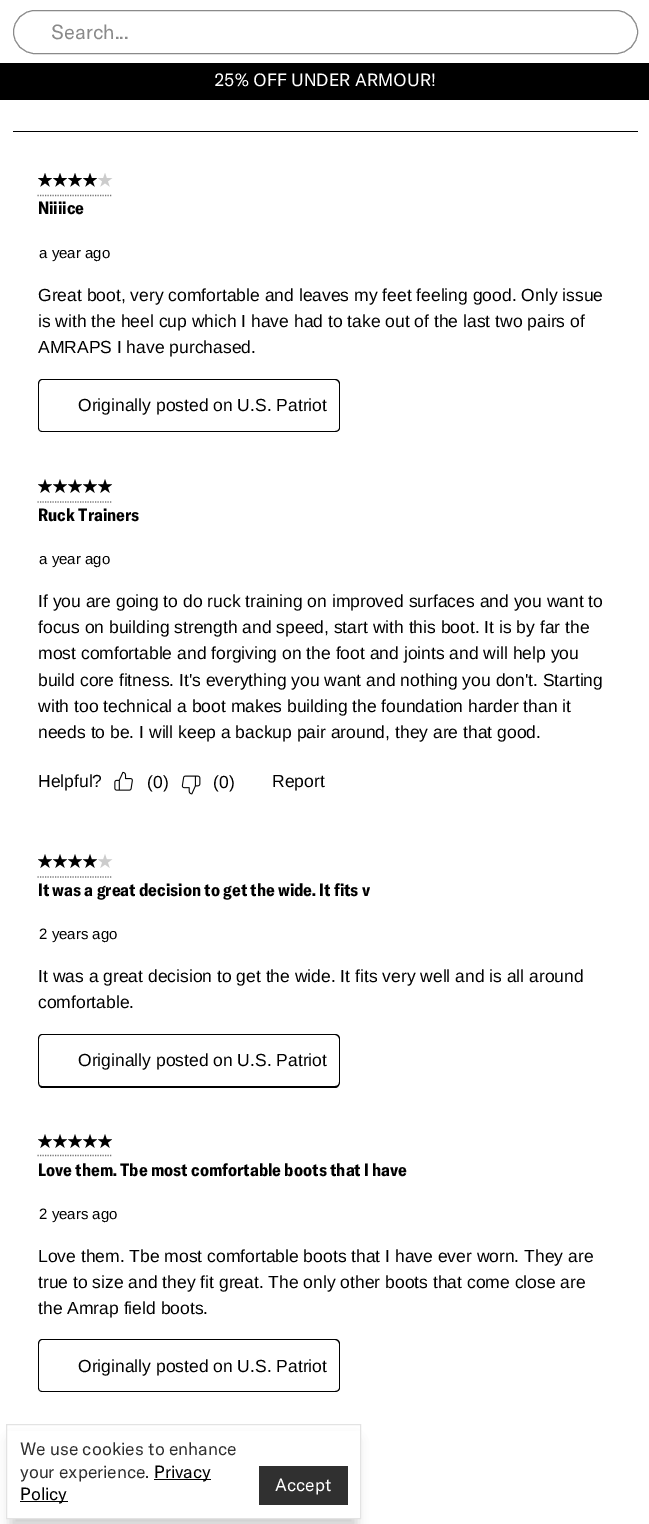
%!PS
<< /PageSize [649 1524] /PageUsesTransparency true >> setpagedevice
/rgb { 3 { 255 div 3 1 roll } repeat setrgbcolor } def
/font { [ exch dup neg 0 0 3 -1 roll 0 0 ] selectfont } def
/alpha { dup .setfillconstantalpha .setstrokeconstantalpha } def
/roundrect { 5 dict begin { /r /h /w /y /x } { exch def } forall
  x r add y moveto x w add y 2 copy h add r arct x w add y h add x 1 index r arct
  x y h add x y r arct x y 2 copy exch w add exch r arct closepath end } def
/shadow { 12 dict begin { /a /b /q /h /w /y /x } { exch def } forall gsave /was 0 def
  9 -2 -9 { dup b mul 4 div /e exch def 1 sub .425 mul 2.718 exch exp 1 add a .99 .min exch div /now exch def
    1 1 now sub 1 was sub div sub alpha /was now def
    w h .min e 2 mul add 0 gt { x e sub y e sub w e 2 mul add h e 2 mul add
      q e add b .6 mul add w h .min 2 div e add .min 0 .max roundrect fill } if } for grestore end } def
/picture { 5 dict begin { /h /w /y /x /name } { exch def } forall
  gsave x y translate w h scale
  w h 8 [w 0 0 h 0 0] name (r) file false 3 colorimage grestore end } def
0 .pushpdf14devicefilter
0 1524 translate 1 -1 scale
4 setmiterlimit
255 255 255 rgb
0 0 649 1524 rectfill
138 138 138 rgb
13.5 10.5 624 43 21.5 roundrect stroke
0 0 0 rgb
0 63 649 37 rectfill
13 131 625 1 rectfill
119 119 119 rgb
1.2 setlinewidth
[1.25 1.25] 0 setdash
37.5 195.5 moveto 112.5 195.5 lineto stroke
(img/1.rgb) 38 173 15 14 picture
(img/1.rgb) 53 173 15 14 picture
(img/1.rgb) 68 173 15 14 picture
(img/1.rgb) 83 173 15 14 picture
(img/2.rgb) 98 173 15 14 picture
0 0 0 rgb
42 379 moveto 65 379 lineto 65 432 lineto 42 432 lineto 40 432 38 430 38 428 curveto 38 384 lineto 38 381 40 379 42 379 curveto closepath 42 380 moveto 65 380 lineto 65 431 lineto 42 431 lineto 40 431 39 430 39 428 curveto 39 384 lineto 39 382 40 380 42 380 curveto closepath eofill
65 379 moveto 335 379 lineto 338 379 340 381 340 384 curveto 340 428 lineto 340 430 338 432 335 432 curveto 65 432 lineto closepath 65 380 moveto 335 380 lineto 337 380 339 382 339 384 curveto 339 428 lineto 339 430 337 431 335 431 curveto 65 431 lineto closepath eofill
119 119 119 rgb
37.5 502 moveto 112.5 502 lineto stroke
(img/3.rgb) 38 479 15 14 picture
(img/3.rgb) 53 479 15 14 picture
(img/3.rgb) 68 479 15 14 picture
(img/3.rgb) 83 479 15 14 picture
(img/3.rgb) 98 479 15 14 picture
(img/4.rgb) 114 771 19 20 picture
(img/5.rgb) 181 775 20 20 picture
37.5 877 moveto 112.5 877 lineto stroke
(img/3.rgb) 38 854 15 14 picture
(img/3.rgb) 53 854 15 14 picture
(img/3.rgb) 68 854 15 14 picture
(img/3.rgb) 83 854 15 14 picture
(img/6.rgb) 98 854 15 14 picture
0 0 0 rgb
42 1034 moveto 65 1034 lineto 65 1088 lineto 42 1088 lineto 40 1088 38 1085 38 1082 curveto 38 1039 lineto 38 1036 40 1034 42 1034 curveto closepath 42 1035 moveto 65 1035 lineto 65 1086 lineto 42 1086 lineto 40 1086 39 1085 39 1082 curveto 39 1039 lineto 39 1037 40 1035 42 1035 curveto closepath eofill
65 1034 moveto 335 1034 lineto 338 1034 340 1036 340 1039 curveto 340 1082 lineto 340 1085 338 1088 335 1088 curveto 65 1088 lineto closepath 65 1035 moveto 335 1035 lineto 337 1035 339 1037 339 1039 curveto 339 1082 lineto 339 1085 337 1086 335 1086 curveto 65 1086 lineto closepath eofill
119 119 119 rgb
37.5 1155.5 moveto 112.5 1155.5 lineto stroke
(img/3.rgb) 38 1134 15 14 picture
(img/3.rgb) 53 1134 15 14 picture
(img/3.rgb) 68 1134 15 14 picture
(img/3.rgb) 83 1134 15 14 picture
(img/3.rgb) 98 1134 15 14 picture
0 0 0 rgb
42 1339 moveto 65 1339 lineto 65 1392 lineto 42 1392 lineto 40 1392 38 1390 38 1388 curveto 38 1344 lineto 38 1341 40 1339 42 1339 curveto closepath 42 1340 moveto 65 1340 lineto 65 1391 lineto 42 1391 lineto 40 1391 39 1390 39 1388 curveto 39 1344 lineto 39 1342 40 1340 42 1340 curveto closepath eofill
65 1339 moveto 335 1339 lineto 338 1339 340 1341 340 1344 curveto 340 1388 lineto 340 1390 338 1392 335 1392 curveto 65 1392 lineto closepath 65 1340 moveto 335 1340 lineto 337 1340 339 1342 339 1344 curveto 339 1388 lineto 339 1390 337 1391 335 1391 curveto 65 1391 lineto closepath eofill
11 1441 345 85 0 6 0.2 shadow
255 255 255 rgb
7 1431 353 87 rectfill
227 227 227 rgb
1 setlinewidth
[] 0 setdash
6.5 1424.5 354 94 rectstroke
[
  [154 1479 57 1 0 0 0]
  [20 1501 48 1 0 0 0]
  [259 1466 89 39 48 48 48]
] { aload pop rgb rectfill } forall
/GTAmerica-Regular 20 font
138 138 138 rgb
51 39 moveto (Search...) show
/GTAmerica-Regular 17.5 font
255 255 255 rgb
214 86 moveto (25% OFF UNDER ARMOUR!) show
/GTAmerica-Bold 17.5 font
0 0 0 rgb
38 214 moveto (Niiiice) show
/LiberationSans-Regular 15 font
39 258 moveto (a year ago) show
/LiberationSans-Regular 17.5 font
[
  [(Great boot, very comfortable and leaves my feet feeling good. Only issue) 38 301]
  [(is with the heel cup which I have had to take out of the last two pairs of) 38 327]
  [(AMRAPS I have purchased.) 38 353]
  [(Originally posted on U.S. Patriot) 78 411]
] { aload pop moveto show } forall
/GTAmerica-Bold 17.5 font
38 521 moveto (Ruck Trainers) show
/LiberationSans-Regular 15 font
39 564 moveto (a year ago) show
/LiberationSans-Regular 17.5 font
[
  [(If you are going to do ruck training on improved surfaces and you want to) 38 607]
  [(focus on building strength and speed, start with this boot. It is by far the) 38 633]
  [(most comfortable and forgiving on the foot and joints and will help you) 38 659]
  [(build core fitness. It's everything you want and nothing you don't. Starting) 38 686]
  [(with too technical a boot makes building the foundation harder than it) 38 712]
  [(needs to be. I will keep a backup pair around, they are that good.) 38 738]
  [(Helpful?) 38 787]
  [(\(0\)) 147 788]
  [(\(0\)) 213 788]
  [(Report) 272 787]
] { aload pop moveto show } forall
/GTAmerica-Bold 17.5 font
38 896 moveto (It was a great decision to get the wide. It fits v) show
/LiberationSans-Regular 15 font
39 939 moveto (2 years ago) show
/LiberationSans-Regular 17.5 font
[
  [(It was a great decision to get the wide. It fits very well and is all around) 38 982]
  [(comfortable.) 38 1008]
  [(Originally posted on U.S. Patriot) 78 1066]
] { aload pop moveto show } forall
/GTAmerica-Bold 17.5 font
38 1176 moveto (Love them. Tbe most comfortable boots that I have) show
/LiberationSans-Regular 15 font
39 1219 moveto (2 years ago) show
/LiberationSans-Regular 17.5 font
[
  [(Love them. Tbe most comfortable boots that I have ever worn. They are) 38 1262]
  [(true to size and they fit great. The only other boots that come close are) 38 1288]
  [(the Amrap field boots.) 38 1314]
  [(Originally posted on U.S. Patriot) 78 1372]
] { aload pop moveto show } forall
/GTAmerica-Regular 17.5 font
48 48 48 rgb
20 1455 moveto (We use cookies to enhance) show
20 1478 moveto (your experience.) show
0 0 0 rgb
154 1478 moveto (Privacy) show
20 1500 moveto (Policy) show
255 255 255 rgb
275 1491 moveto (Accept) show
.poppdf14devicefilter showpage
